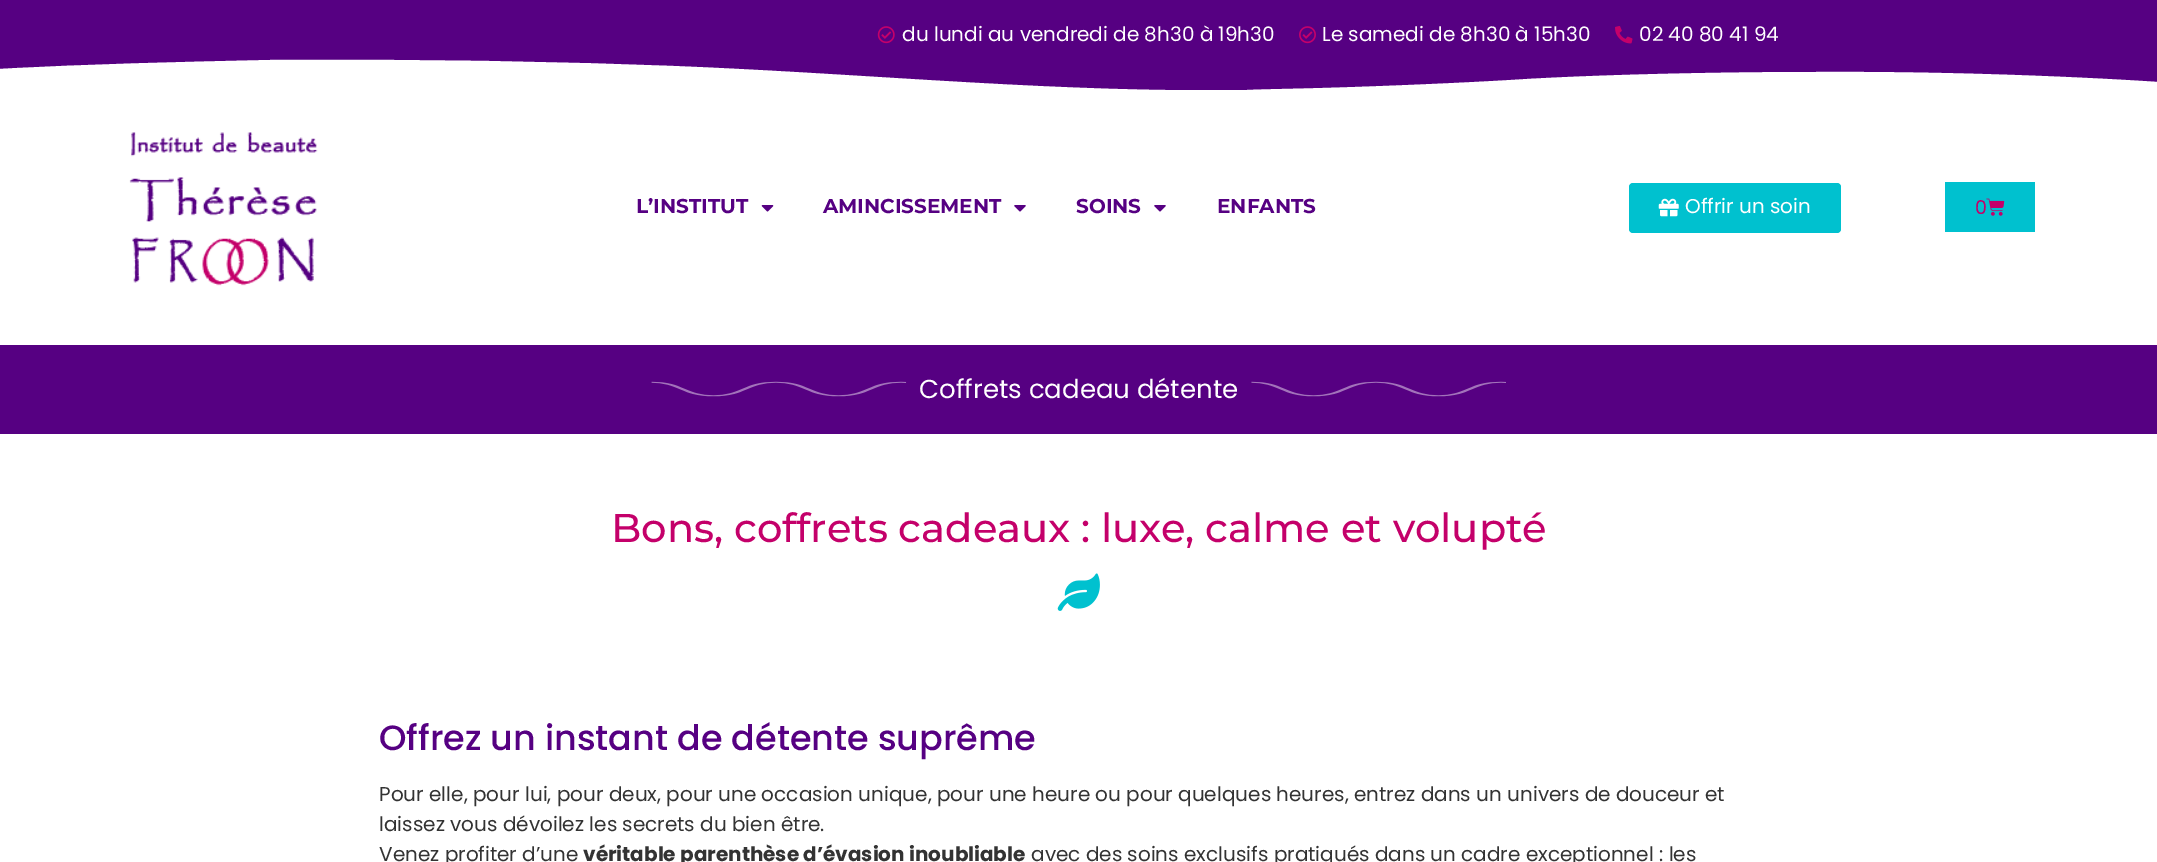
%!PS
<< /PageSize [2157 862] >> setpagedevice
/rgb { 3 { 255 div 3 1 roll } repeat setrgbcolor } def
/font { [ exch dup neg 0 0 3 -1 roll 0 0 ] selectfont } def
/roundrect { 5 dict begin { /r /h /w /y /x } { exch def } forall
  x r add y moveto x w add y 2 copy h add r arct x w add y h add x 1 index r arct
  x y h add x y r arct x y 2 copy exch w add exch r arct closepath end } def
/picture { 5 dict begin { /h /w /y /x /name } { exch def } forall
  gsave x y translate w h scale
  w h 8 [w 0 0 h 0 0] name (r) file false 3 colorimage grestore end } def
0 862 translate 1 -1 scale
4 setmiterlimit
255 255 255 rgb
0 0 2157 862 rectfill
86 0 130 rgb
0 0 2157 90 rectfill
(img/1.rgb) 877 26 18 18 picture
(img/2.rgb) 1299 26 17 18 picture
(img/3.rgb) 1615 26 18 18 picture
gsave
0 59 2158 32 rectclip
255 255 255 rgb
1247 90 moveto 1064 93 881 75 697 67 curveto 555 61 412 59 270 60 curveto 179 62 89 64 -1 69 curveto -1 92 lineto 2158 92 lineto 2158 82 lineto 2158 82 2003 71 1816 72 curveto 1732 72 1616 74 1527 79 curveto 1481 82 1414 85 1355 87 curveto 1296 89 1270 89 1247 90 curveto closepath fill
grestore
(img/4.rgb) 129 132 189 154 picture
(img/5.rgb) 761 205 13 7 picture
(img/6.rgb) 1014 205 12 7 picture
(img/6.rgb) 1154 205 12 7 picture
0 193 207 rgb
1629 183 212 50 4 roundrect fill
(img/7.rgb) 1658 198 21 19 picture
1945 182 90 50 rectfill
(img/8.rgb) 1986 198 19 18 picture
86 0 130 rgb
0 345 2157 89 rectfill
(img/9.rgb) 651 381 256 16 picture
(img/10.rgb) 1251 381 255 16 picture
(img/11.rgb) 1057 573 43 38 picture
/Poppins-Regular 20 font
255 255 255 rgb
[
  [(du lundi au vendredi de 8h30 à 19h30) 902 41]
  [(Le samedi de 8h30 à 15h30) 1322 41]
  [(02 40 80 41 94) 1639 41]
] { aload pop moveto show } forall
/Montserrat-Bold 20 font
86 0 130 rgb
[
  [(L’INSTITUT) 636 213]
  [(AMINCISSEMENT) 823 213]
  [(SOINS) 1076 213]
  [(ENFANTS) 1217 213]
] { aload pop moveto show } forall
/Poppins-Regular 20 font
255 255 255 rgb
1685 213 moveto (Offrir un soin) show
/Poppins-Regular 19 font
196 0 106 rgb
1975 214 moveto (0) show
/Poppins-Regular 26 font
255 255 255 rgb
919 398 moveto (Coffrets cadeau détente) show
/Montserrat-Medium 40 font
196 0 106 rgb
611 542 moveto (Bons, coffrets cadeaux : luxe, calme et volupté) show
/Poppins-Medium 35 font
86 0 130 rgb
379 750 moveto (Offrez un instant de détente suprême) show
/Poppins-Regular 20 font
51 51 51 rgb
[
  [(Pour elle, pour lui, pour deux, pour une occasion unique, pour une heure ou pour quelques heures, entrez dans un univers de douceur et) 379 801]
  [(laissez vous dévoilez les secrets du bien être.) 379 831]
  [(Venez profiter d’une) 379 861]
] { aload pop moveto show } forall
/Poppins-Bold 20 font
583 861 moveto (véritable parenthèse d’évasion inoubliable) show
/Poppins-Regular 20 font
1031 861 moveto (avec des soins exclusifs pratiqués dans un cadre exceptionnel : les) show
showpage
